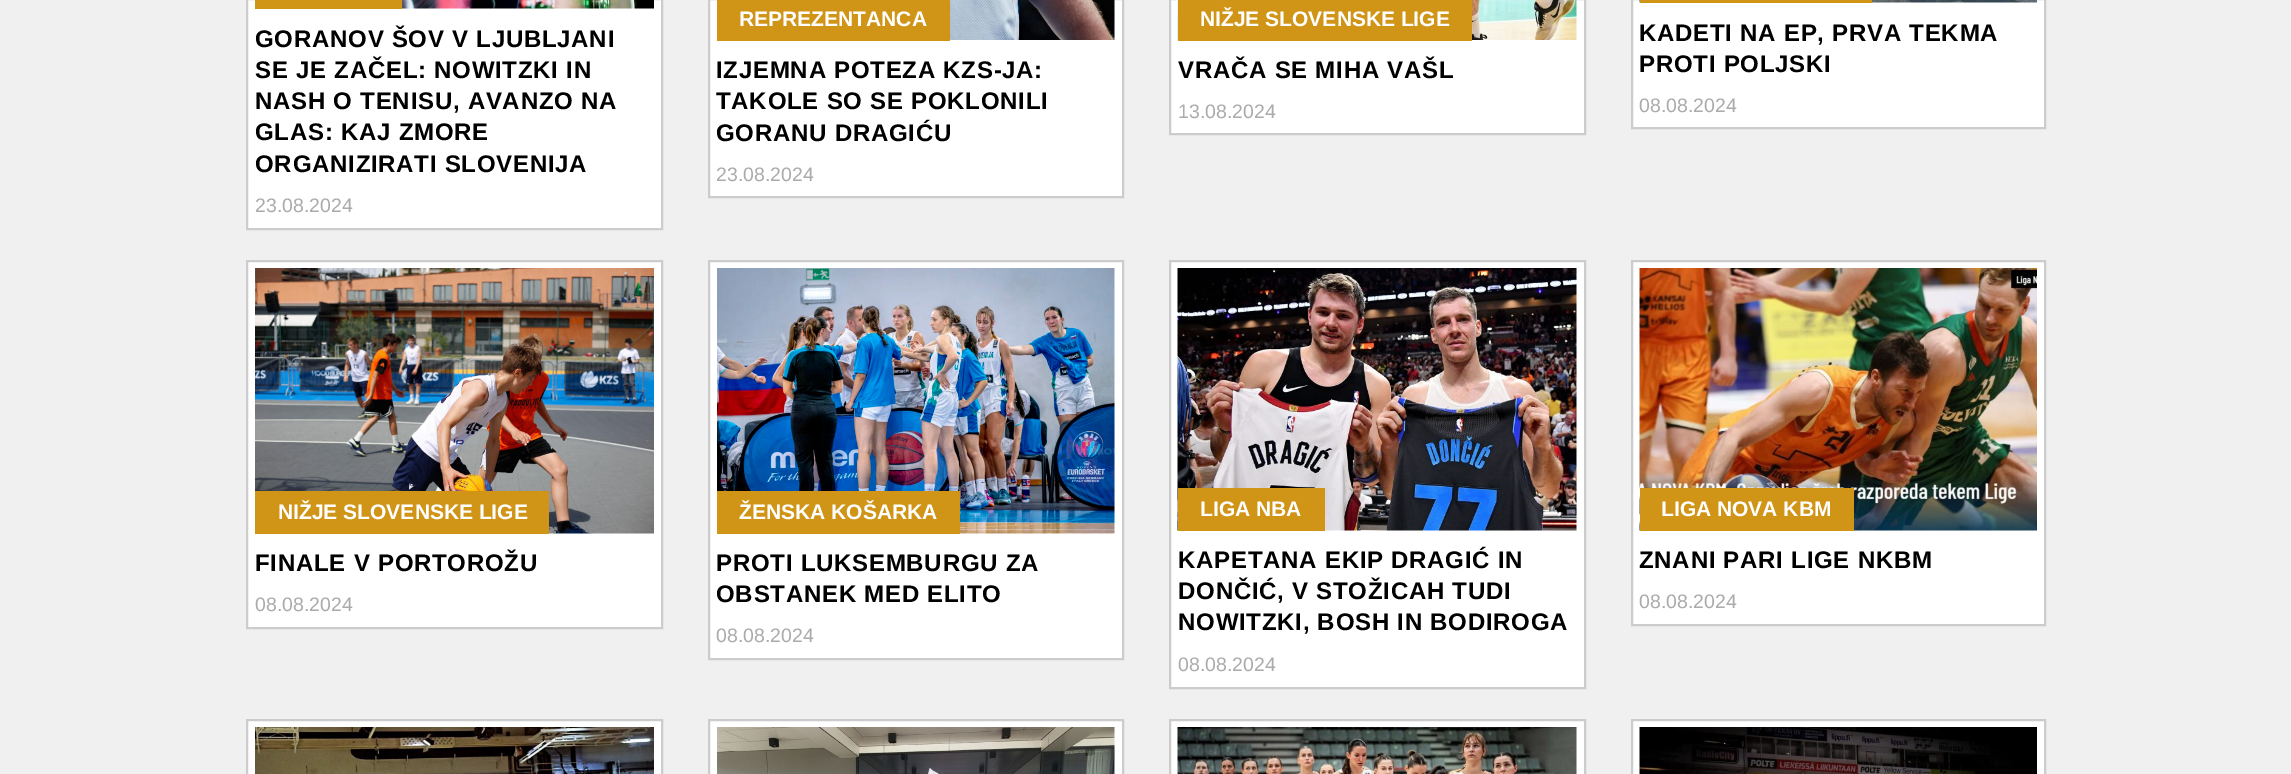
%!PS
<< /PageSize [2291 774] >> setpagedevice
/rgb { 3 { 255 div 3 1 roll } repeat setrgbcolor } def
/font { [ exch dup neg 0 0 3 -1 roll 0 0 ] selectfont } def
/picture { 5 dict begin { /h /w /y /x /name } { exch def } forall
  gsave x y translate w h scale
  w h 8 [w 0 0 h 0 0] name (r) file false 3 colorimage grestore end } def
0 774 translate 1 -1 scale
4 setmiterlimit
240 240 240 rgb
0 0 2291 774 rectfill
255 255 255 rgb
247 -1 moveto 662 -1 lineto 662 229 lineto 247 229 lineto closepath gsave fill grestore
204 204 204 rgb
2 setlinewidth
stroke
208 149 23 rgb
255 0 147 9 rectfill
(img/1.rgb) 402 0 252 9 picture
255 255 255 rgb
709 -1 moveto 1123 -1 lineto 1123 197 lineto 709 197 lineto closepath gsave fill grestore
204 204 204 rgb
stroke
208 149 23 rgb
717 0 233 41 rectfill
(img/2.rgb) 950 0 165 40 picture
255 255 255 rgb
1170 -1 moveto 1585 -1 lineto 1585 134 lineto 1170 134 lineto closepath gsave fill grestore
204 204 204 rgb
stroke
(img/3.rgb) 1177 0 400 40 picture
208 149 23 rgb
1178 0 294 41 rectfill
255 255 255 rgb
1632 -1 moveto 2045 -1 lineto 2045 128 lineto 1632 128 lineto closepath gsave fill grestore
204 204 204 rgb
stroke
(img/4.rgb) 1639 0 398 3 picture
208 149 23 rgb
1640 0 232 3 rectfill
255 255 255 rgb
247 261 moveto 662 261 lineto 662 628 lineto 247 628 lineto closepath gsave fill grestore
204 204 204 rgb
stroke
(img/5.rgb) 255 268 399 266 picture
208 149 23 rgb
255 491 294 43 rectfill
255 255 255 rgb
709 261 moveto 1123 261 lineto 1123 659 lineto 709 659 lineto closepath gsave fill grestore
204 204 204 rgb
stroke
(img/6.rgb) 717 268 398 266 picture
208 149 23 rgb
717 491 243 43 rectfill
255 255 255 rgb
1170 261 moveto 1585 261 lineto 1585 688 lineto 1170 688 lineto closepath gsave fill grestore
204 204 204 rgb
stroke
(img/7.rgb) 1177 268 400 263 picture
208 149 23 rgb
1178 488 147 43 rectfill
255 255 255 rgb
1632 261 moveto 2045 261 lineto 2045 625 lineto 1632 625 lineto closepath gsave fill grestore
204 204 204 rgb
stroke
(img/8.rgb) 1639 268 398 263 picture
208 149 23 rgb
1640 488 214 43 rectfill
255 255 255 rgb
247 720 moveto 662 720 lineto 662 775 lineto 247 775 lineto closepath gsave fill grestore
204 204 204 rgb
stroke
(img/9.rgb) 255 727 399 47 picture
255 255 255 rgb
709 720 moveto 1123 720 lineto 1123 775 lineto 709 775 lineto closepath gsave fill grestore
204 204 204 rgb
stroke
(img/10.rgb) 717 727 398 47 picture
255 255 255 rgb
1170 720 moveto 1585 720 lineto 1585 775 lineto 1170 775 lineto closepath gsave fill grestore
204 204 204 rgb
stroke
(img/11.rgb) 1177 727 400 47 picture
255 255 255 rgb
1632 720 moveto 2045 720 lineto 2045 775 lineto 1632 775 lineto closepath gsave fill grestore
204 204 204 rgb
stroke
(img/12.rgb) 1639 727 398 47 picture
/LiberationSans-Bold 24 font
0 0 0 rgb
255 47 moveto 0.75 0 (GORANOV ŠOV V LJUBLJANI) ashow
255 78 moveto 0.75 0 (SE JE ZAČEL: NOWITZKI IN) ashow
255 109 moveto 0.75 0 (NASH O TENISU, AVANZO NA) ashow
255 140 moveto 0.75 0 (GLAS: KAJ ZMORE) ashow
255 172 moveto 0.75 0 (ORGANIZIRATI SLOVENIJA) ashow
/LiberationSans-Regular 19.5 font
171 171 171 rgb
255 212 moveto (23.08.2024) show
/LiberationSans-Bold 21 font
255 255 255 rgb
739 26 moveto (REPREZENTANCA) show
/LiberationSans-Bold 24 font
0 0 0 rgb
716 78 moveto 0.75 0 (IZJEMNA POTEZA KZS-JA:) ashow
716 109 moveto 0.75 0 (TAKOLE SO SE POKLONILI) ashow
716 141 moveto 0.75 0 (GORANU DRAGIĆU) ashow
/LiberationSans-Regular 19.5 font
171 171 171 rgb
716 181 moveto (23.08.2024) show
/LiberationSans-Bold 21 font
255 255 255 rgb
1200 26 moveto (NIŽJE SLOVENSKE LIGE) show
/LiberationSans-Bold 24 font
0 0 0 rgb
1178 78 moveto 0.75 0 (VRAČA SE MIHA VAŠL) ashow
/LiberationSans-Regular 19.5 font
171 171 171 rgb
1178 118 moveto (13.08.2024) show
/LiberationSans-Bold 24 font
0 0 0 rgb
1639 41 moveto 0.75 0 (KADETI NA EP, PRVA TEKMA) ashow
1639 72 moveto 0.75 0 (PROTI POLJSKI) ashow
/LiberationSans-Regular 19.5 font
171 171 171 rgb
1639 112 moveto (08.08.2024) show
/LiberationSans-Bold 21 font
255 255 255 rgb
278 519 moveto (NIŽJE SLOVENSKE LIGE) show
/LiberationSans-Bold 24 font
0 0 0 rgb
255 571 moveto 0.75 0 (FINALE V PORTOROŽU) ashow
/LiberationSans-Regular 19.5 font
171 171 171 rgb
255 611 moveto (08.08.2024) show
/LiberationSans-Bold 21 font
255 255 255 rgb
739 519 moveto (ŽENSKA KOŠARKA) show
/LiberationSans-Bold 24 font
0 0 0 rgb
716 571 moveto 0.75 0 (PROTI LUKSEMBURGU ZA) ashow
716 602 moveto 0.75 0 (OBSTANEK MED ELITO) ashow
/LiberationSans-Regular 19.5 font
171 171 171 rgb
716 642 moveto (08.08.2024) show
/LiberationSans-Bold 21 font
255 255 255 rgb
1200 516 moveto (LIGA NBA) show
/LiberationSans-Bold 24 font
0 0 0 rgb
1178 568 moveto 0.75 0 (KAPETANA EKIP DRAGIĆ IN) ashow
1178 599 moveto 0.75 0 (DONČIĆ, V STOŽICAH TUDI) ashow
1178 630 moveto 0.75 0 (NOWITZKI, BOSH IN BODIROGA) ashow
/LiberationSans-Regular 19.5 font
171 171 171 rgb
1178 671 moveto (08.08.2024) show
/LiberationSans-Bold 21 font
255 255 255 rgb
1661 516 moveto (LIGA NOVA KBM) show
/LiberationSans-Bold 24 font
0 0 0 rgb
1639 568 moveto 0.75 0 (ZNANI PARI LIGE NKBM) ashow
/LiberationSans-Regular 19.5 font
171 171 171 rgb
1639 608 moveto (08.08.2024) show
showpage
